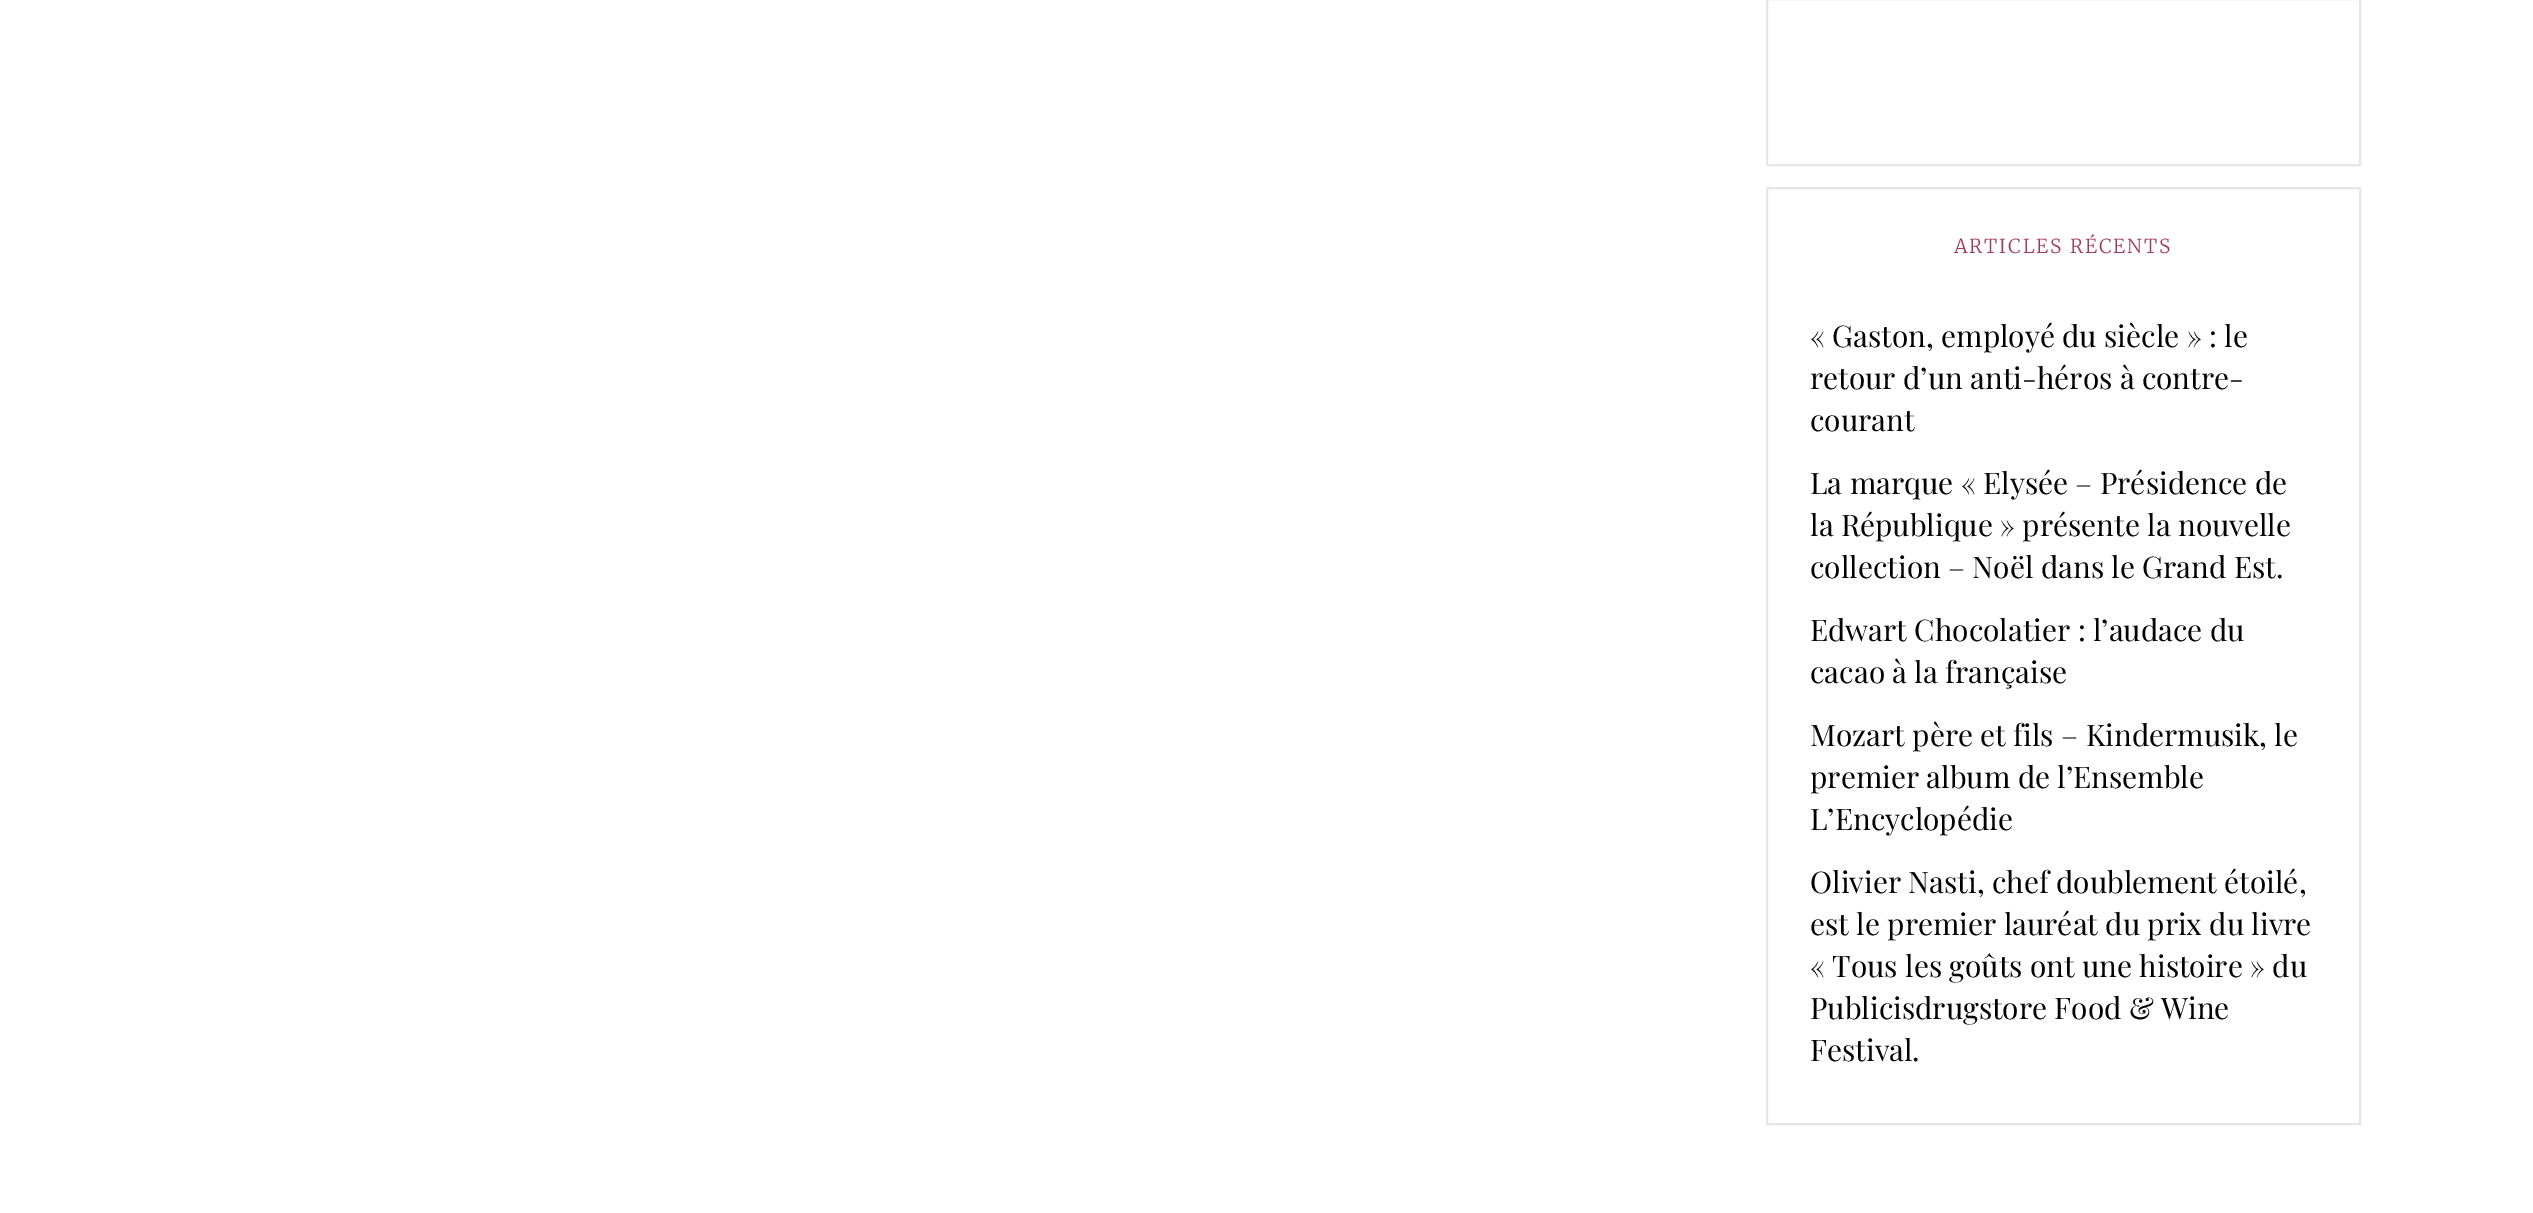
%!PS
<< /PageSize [2533 1213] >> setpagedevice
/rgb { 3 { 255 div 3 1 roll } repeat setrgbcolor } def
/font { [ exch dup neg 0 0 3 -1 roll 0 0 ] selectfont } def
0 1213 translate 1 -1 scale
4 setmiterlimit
255 255 255 rgb
0 0 2533 1213 rectfill
230 230 230 rgb
2 setlinewidth
1767 -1 593 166 rectstroke
1767 188 593 936 rectstroke
/Merriweather-Light 19.25 font
163 59 97 rgb
1954 253 moveto 1.9 0 (ARTICLES RÉCENTS) ashow
/PlayfairDisplay-Regular 29.75 font
0 0 0 rgb
[
  [(« Gaston, employé du siècle » : le) 1810 347]
  [(retour d’un anti-héros à contre-) 1810 389]
  [(courant) 1810 431]
  [(La marque « Elysée – Présidence de) 1810 494]
  [(la République » présente la nouvelle) 1810 536]
  [(collection – Noël dans le Grand Est.) 1810 578]
  [(Edwart Chocolatier : l’audace du) 1810 641]
  [(cacao à la française) 1810 683]
  [(Mozart père et fils – Kindermusik, le) 1810 746]
  [(premier album de l’Ensemble) 1810 788]
  [(L’Encyclopédie) 1810 830]
  [(Olivier Nasti, chef doublement étoilé,) 1810 893]
  [(est le premier lauréat du prix du livre) 1810 935]
  [(« Tous les goûts ont une histoire » du) 1810 977]
  [(Publicisdrugstore Food & Wine) 1810 1019]
  [(Festival.) 1810 1061]
] { aload pop moveto show } forall
showpage
